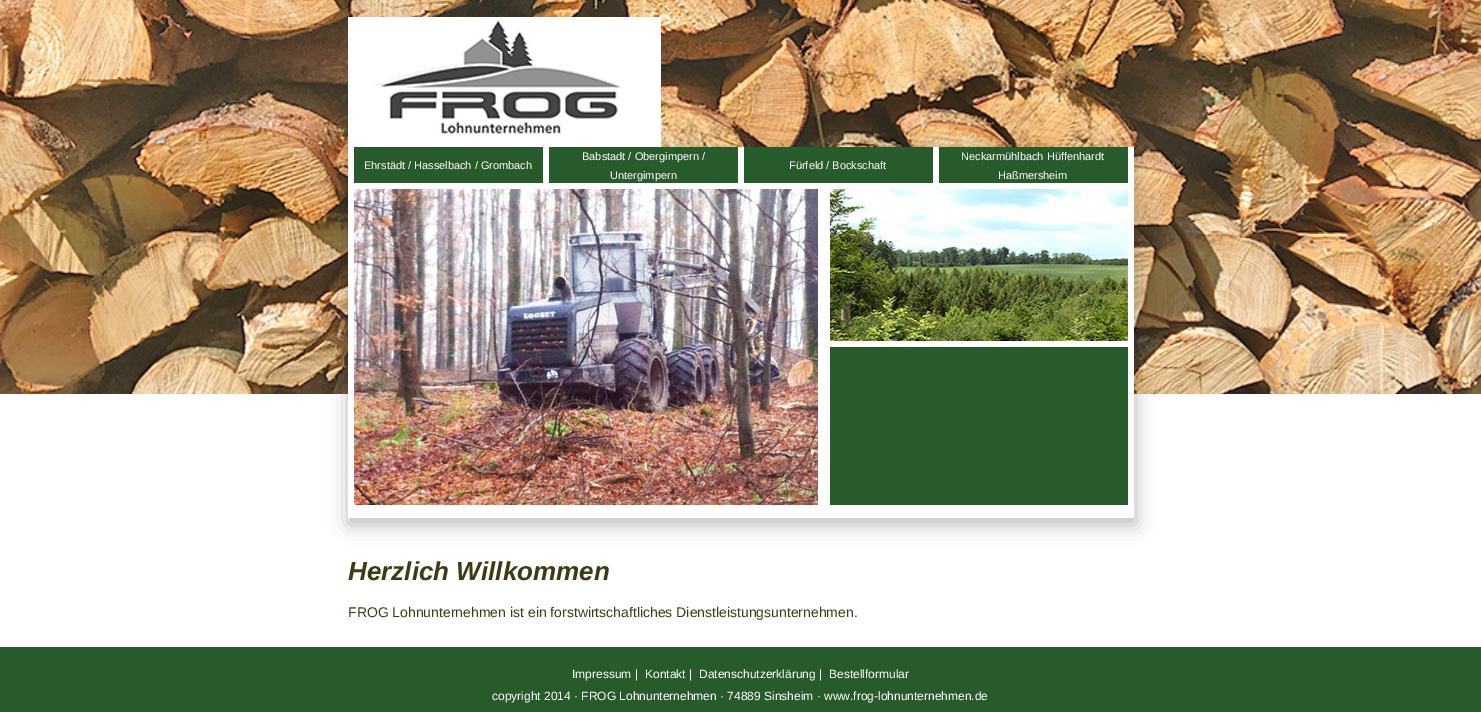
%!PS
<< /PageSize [1481 712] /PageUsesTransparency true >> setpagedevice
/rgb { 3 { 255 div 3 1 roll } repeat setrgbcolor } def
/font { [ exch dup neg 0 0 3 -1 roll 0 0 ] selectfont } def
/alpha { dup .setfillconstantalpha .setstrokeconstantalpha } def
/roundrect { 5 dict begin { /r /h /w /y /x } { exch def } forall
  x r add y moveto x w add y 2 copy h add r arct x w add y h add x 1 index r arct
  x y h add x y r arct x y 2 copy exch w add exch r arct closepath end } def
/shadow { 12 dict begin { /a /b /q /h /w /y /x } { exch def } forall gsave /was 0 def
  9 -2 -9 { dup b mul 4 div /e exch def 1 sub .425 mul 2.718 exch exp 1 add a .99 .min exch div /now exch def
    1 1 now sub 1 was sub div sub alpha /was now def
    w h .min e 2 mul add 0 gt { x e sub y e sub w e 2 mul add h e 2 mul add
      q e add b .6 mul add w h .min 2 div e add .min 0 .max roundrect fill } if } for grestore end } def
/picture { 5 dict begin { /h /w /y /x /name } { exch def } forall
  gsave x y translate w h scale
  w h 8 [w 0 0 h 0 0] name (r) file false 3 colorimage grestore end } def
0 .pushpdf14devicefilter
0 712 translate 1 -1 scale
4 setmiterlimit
255 255 255 rgb
0 0 1481 712 rectfill
(img/1.rgb) 0 0 1481 394 picture
0 0 0 rgb
348 152 788 373 0 9.5 0.25 shadow
(img/2.rgb) 348 17 313 130 picture
[
  [348 147 786 371 255 255 255]
  [354 147 189 36 40 91 43]
  [549 147 189 36 40 91 43]
  [744 147 189 36 40 91 43]
  [939 147 189 36 40 91 43]
] { aload pop rgb rectfill } forall
(img/3.rgb) 354 189 464 316 picture
(img/4.rgb) 830 189 298 152 picture
830 347 298 158 rectfill
0 647 1481 65 rectfill
/LiberationSans-Regular 11 font
255 255 255 rgb
[
  [(Ehrstädt / Hasselbach / Grombach) 364 169]
  [(Babstadt / Obergimpern /) 582 160]
  [(Untergimpern) 610 179]
  [(Fürfeld / Bockschaft) 789 169]
  [(Neckarmühlbach Hüffenhardt) 961 160]
  [(Haßmersheim) 998 179]
] { aload pop moveto show } forall
/LiberationSans-BoldItalic 26 font
60 59 21 rgb
348 580 moveto (Herzlich Willkommen) show
/LiberationSans-Regular 14 font
348 617 moveto (FROG Lohnunternehmen ist ein forstwirtschaftliches Dienstleistungsunternehmen.) show
/LiberationSans-Regular 12 font
255 255 255 rgb
[
  [(Impressum |) 572 678]
  [(Kontakt |) 645 678]
  [(Datenschutzerklärung |) 699 678]
  [(Bestellformular) 829 678]
  [(copyright 2014 · FROG Lohnunternehmen · 74889 Sinsheim · www.frog-lohnunternehmen.de) 492 700]
] { aload pop moveto show } forall
.poppdf14devicefilter showpage
